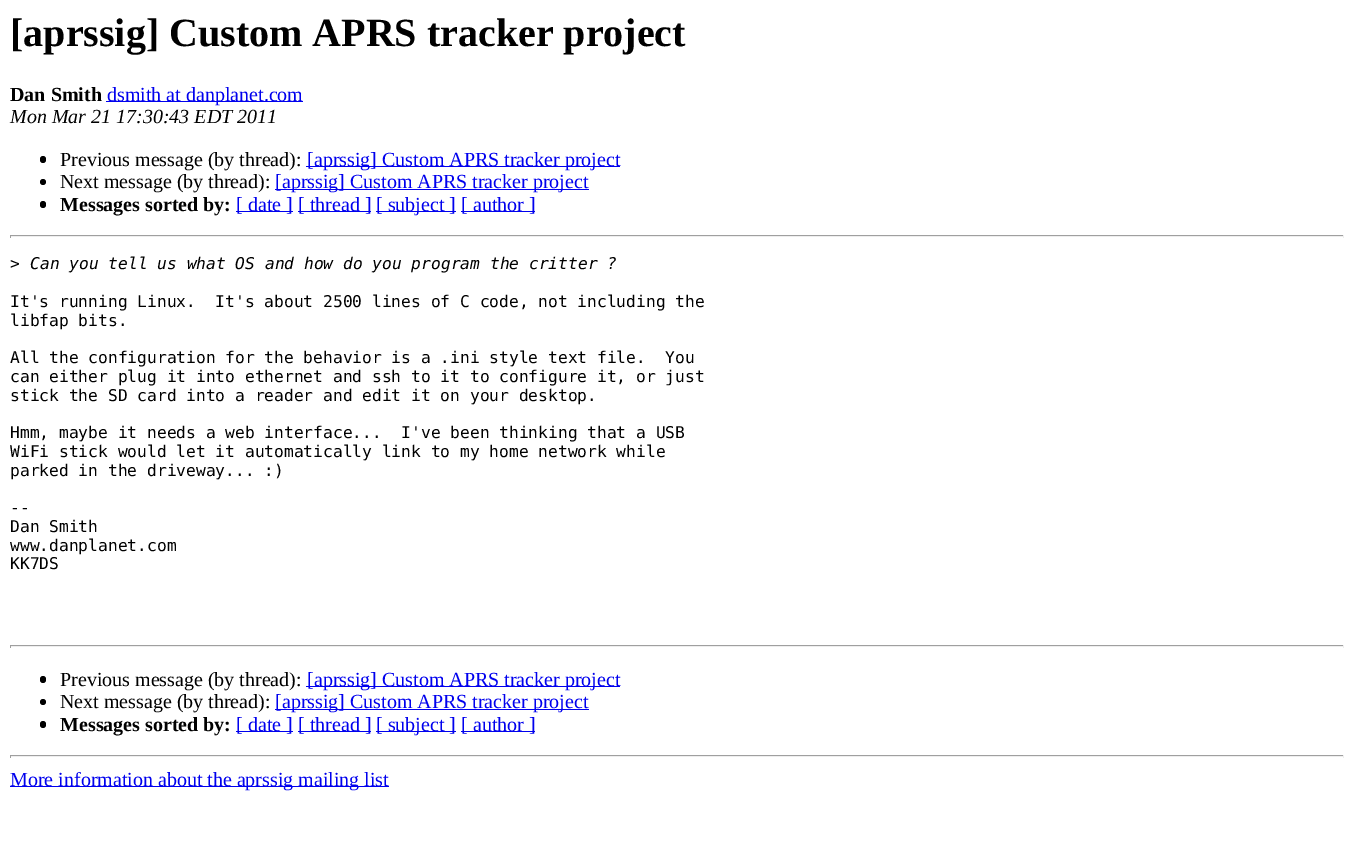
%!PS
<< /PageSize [1353 860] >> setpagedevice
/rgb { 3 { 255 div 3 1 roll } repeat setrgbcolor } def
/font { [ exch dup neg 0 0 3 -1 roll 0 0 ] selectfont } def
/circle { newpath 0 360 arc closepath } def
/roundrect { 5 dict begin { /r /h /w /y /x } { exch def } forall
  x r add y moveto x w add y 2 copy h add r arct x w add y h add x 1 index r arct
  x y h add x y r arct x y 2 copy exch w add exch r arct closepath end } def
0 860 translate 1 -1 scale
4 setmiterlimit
255 255 255 rgb
0 0 1353 860 rectfill
0 0 238 rgb
106 101 197 1 rectfill
0 0 0 rgb
40 156 6 7 3 roundrect fill
0 0 238 rgb
306 166 314 1 rectfill
0 0 0 rgb
43 182 3 circle fill
0 0 238 rgb
275 189 314 1 rectfill
0 0 0 rgb
40 201 6 7 3 roundrect fill
[
  [236 211 57 1 0 0 238]
  [298 211 73 1 0 0 238]
  [376 211 80 1 0 0 238]
  [461 211 74 1 0 0 238]
  [10 235 1334 1 159 159 159]
  [1343 235 1 3 238 238 238]
  [10 236 1334 1 238 238 238]
  [10 235 1 3 159 159 159]
  [10 645 1334 1 159 159 159]
  [1343 645 1 3 238 238 238]
  [10 646 1334 1 238 238 238]
  [10 645 1 3 159 159 159]
] { aload pop rgb rectfill } forall
0 0 0 rgb
40 676 6 7 3 roundrect fill
0 0 238 rgb
306 686 314 1 rectfill
0 0 0 rgb
43 702 3 circle fill
0 0 238 rgb
275 709 314 1 rectfill
0 0 0 rgb
40 721 6 7 3 roundrect fill
[
  [236 731 57 1 0 0 238]
  [298 731 73 1 0 0 238]
  [376 731 80 1 0 0 238]
  [461 731 74 1 0 0 238]
  [10 755 1334 1 159 159 159]
  [1343 755 1 3 238 238 238]
  [10 756 1334 1 238 238 238]
  [10 755 1 3 159 159 159]
  [10 786 379 1 0 0 238]
] { aload pop rgb rectfill } forall
/LiberationSerif-Bold 40 font
0 0 0 rgb
10 46 moveto ([aprssig] Custom APRS tracker project) show
/LiberationSerif-Bold 20 font
10 101 moveto (Dan Smith) show
/LiberationSerif-Regular 20 font
0 0 238 rgb
107 101 moveto (dsmith at danplanet.com) show
/LiberationSerif-Italic 20 font
0 0 0 rgb
10 123 moveto (Mon Mar 21 17:30:43 EDT 2011) show
/LiberationSerif-Regular 20 font
60 166 moveto (Previous message \(by thread\):) show
0 0 238 rgb
307 166 moveto ([aprssig] Custom APRS tracker project) show
0 0 0 rgb
60 188 moveto (Next message \(by thread\):) show
0 0 238 rgb
275 188 moveto ([aprssig] Custom APRS tracker project) show
/LiberationSerif-Bold 20 font
0 0 0 rgb
60 211 moveto (Messages sorted by:) show
/LiberationSerif-Regular 20 font
0 0 238 rgb
[
  [([ date ]) 236 211]
  [([ thread ]) 298 211]
  [([ subject ]) 376 211]
  [([ author ]) 461 211]
] { aload pop moveto show } forall
/DejaVuSansMono-Regular 16.25 font
0 0 0 rgb
10 269 moveto (>) show
/DejaVuSansMono-Italic 16.25 font
30 269 moveto (Can you tell us what OS and how do you program the critter ?) show
/DejaVuSansMono-Regular 16.25 font
[
  [(It's running Linux.  It's about 2500 lines of C code, not including the) 10 307]
  [(libfap bits.) 10 326]
  [(All the configuration for the behavior is a .ini style text file.  You) 10 363]
  [(can either plug it into ethernet and ssh to it to configure it, or just) 10 382]
  [(stick the SD card into a reader and edit it on your desktop.) 10 401]
  [(Hmm, maybe it needs a web interface...  I've been thinking that a USB) 10 438]
  [(WiFi stick would let it automatically link to my home network while) 10 457]
  [(parked in the driveway... :\)) 10 476]
  [(--) 10 513]
  [(Dan Smith) 10 532]
  [(www.danplanet.com) 10 551]
  [(KK7DS) 10 569]
] { aload pop moveto show } forall
/LiberationSerif-Regular 20 font
60 686 moveto (Previous message \(by thread\):) show
0 0 238 rgb
307 686 moveto ([aprssig] Custom APRS tracker project) show
0 0 0 rgb
60 708 moveto (Next message \(by thread\):) show
0 0 238 rgb
275 708 moveto ([aprssig] Custom APRS tracker project) show
/LiberationSerif-Bold 20 font
0 0 0 rgb
60 731 moveto (Messages sorted by:) show
/LiberationSerif-Regular 20 font
0 0 238 rgb
[
  [([ date ]) 236 731]
  [([ thread ]) 298 731]
  [([ subject ]) 376 731]
  [([ author ]) 461 731]
  [(More information about the aprssig mailing list) 10 786]
] { aload pop moveto show } forall
showpage
